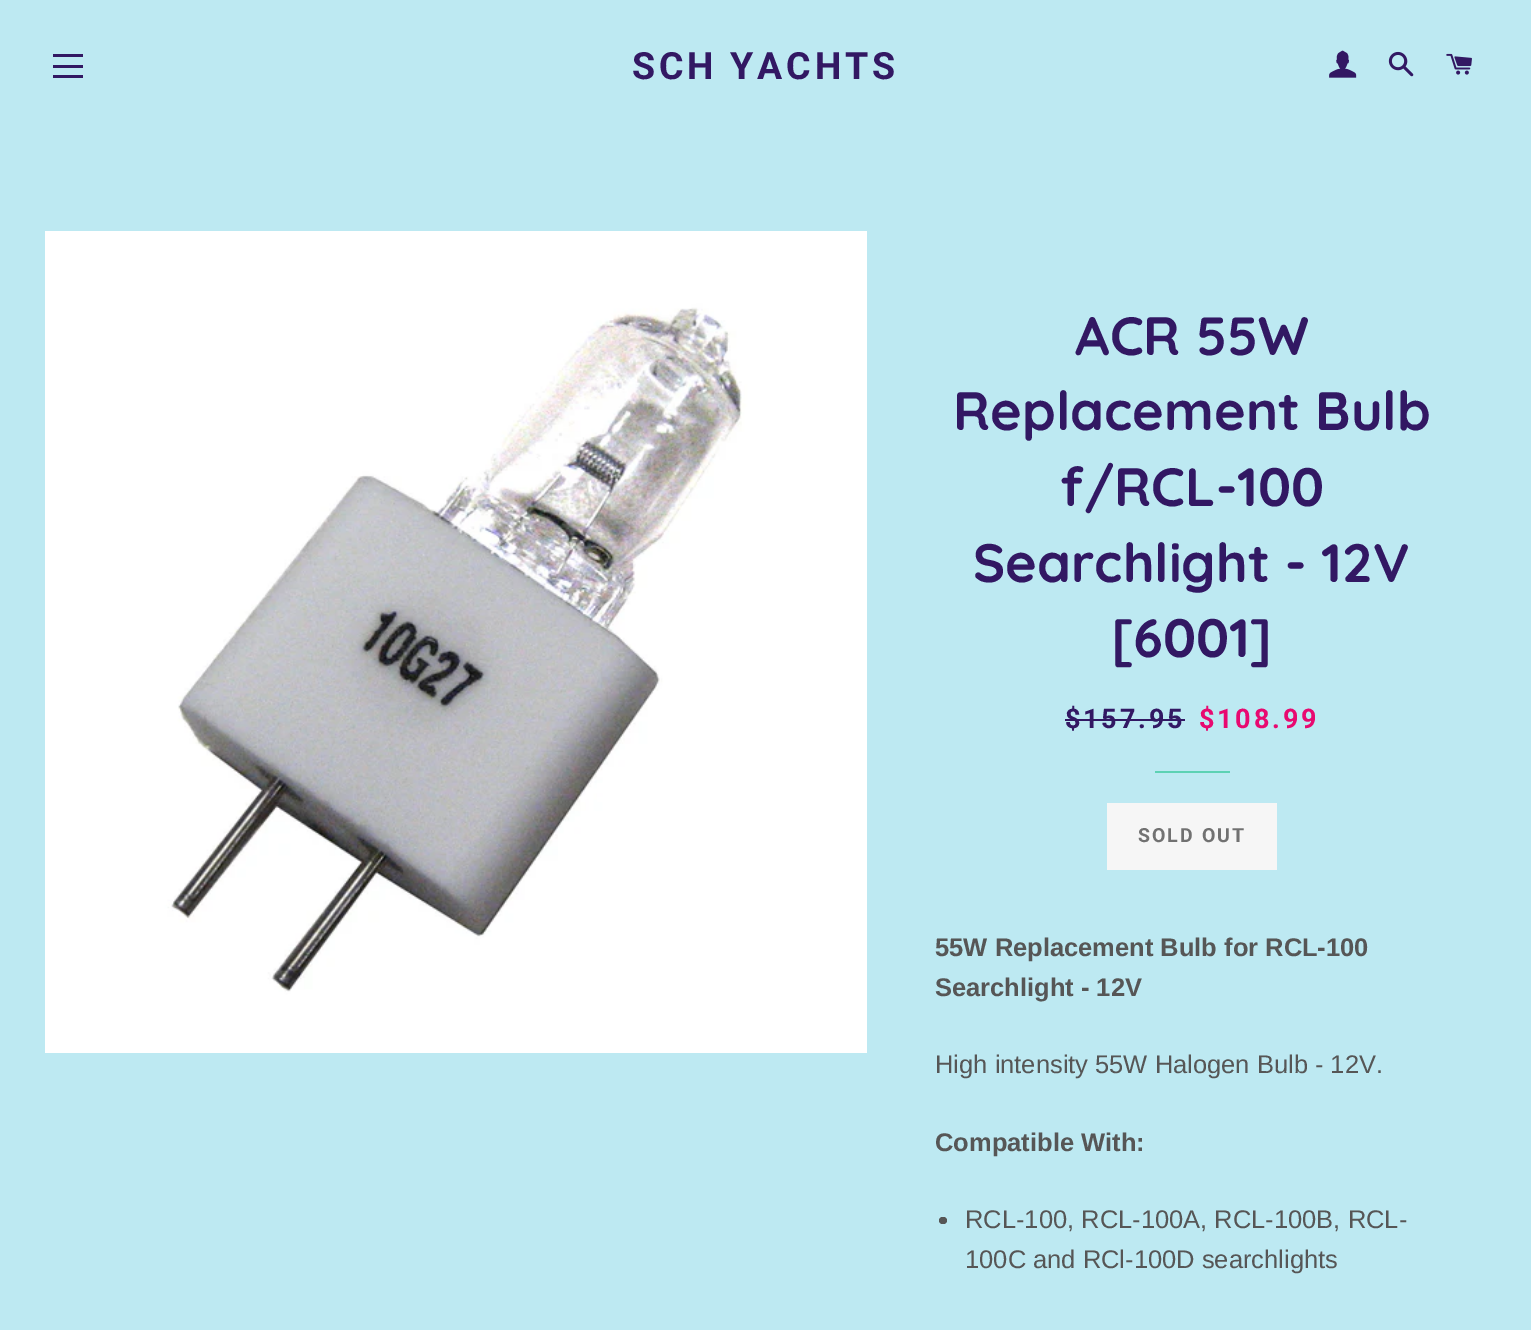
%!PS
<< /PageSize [1531 1330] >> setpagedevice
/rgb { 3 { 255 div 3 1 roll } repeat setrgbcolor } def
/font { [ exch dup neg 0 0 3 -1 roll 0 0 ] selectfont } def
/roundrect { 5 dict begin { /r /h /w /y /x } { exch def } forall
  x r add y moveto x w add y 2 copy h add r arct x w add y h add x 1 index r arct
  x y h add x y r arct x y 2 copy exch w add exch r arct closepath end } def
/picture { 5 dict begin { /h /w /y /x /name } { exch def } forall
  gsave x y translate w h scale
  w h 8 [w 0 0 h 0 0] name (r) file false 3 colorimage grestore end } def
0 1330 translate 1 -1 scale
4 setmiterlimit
189 233 242 rgb
0 0 1531 1330 rectfill
[
  [53 54 30 3 50 24 99]
  [53 65 30 3 50 24 99]
  [53 75 30 3 50 24 99]
] { aload pop rgb rectfill } forall
(img/1.rgb) 1329 50 28 28 picture
(img/2.rgb) 1388 51 26 26 picture
(img/3.rgb) 1446 53 26 22 picture
(img/4.rgb) 45 231 822 822 picture
[
  [1065 719 120 2 50 24 99]
  [1155 771 75 2 93 210 180]
  [1107 803 170 67 246 246 246]
] { aload pop rgb rectfill } forall
86 86 86 rgb
939 1217 8 7 3.5 roundrect fill
/Roboto-Bold 37.5 font
50 24 99 rgb
632 79 moveto 3.75 0 (SCH YACHTS) ashow
/Quicksand-Light 54 font
[
  [(ACR 55W) 1075 355]
  [(Replacement Bulb) 953 430]
  [(f/RCL-100) 1060 506]
  [(Searchlight - 12V) 973 582]
  [([6001]) 1111 657]
] { aload pop moveto show } forall
/Roboto-Bold 27 font
1065 728 moveto 2.75 0 ($157.95) ashow
232 9 112 rgb
1199 728 moveto 2.75 0 ($108.99) ashow
/Roboto-Bold 19.5 font
113 113 113 rgb
1138 842 moveto 2 0 (SOLD OUT) ashow
/LiberationSans-Bold 25.5 font
86 86 86 rgb
935 956 moveto (55W Replacement Bulb for RCL-100) show
935 996 moveto (Searchlight - 12V) show
/LiberationSans-Regular 25.5 font
935 1073 moveto (High intensity 55W Halogen Bulb - 12V.) show
/LiberationSans-Bold 25.5 font
935 1151 moveto (Compatible With:) show
/LiberationSans-Regular 25.5 font
965 1228 moveto (RCL-100, RCL-100A, RCL-100B, RCL-) show
965 1268 moveto (100C and RCl-100D searchlights) show
showpage
